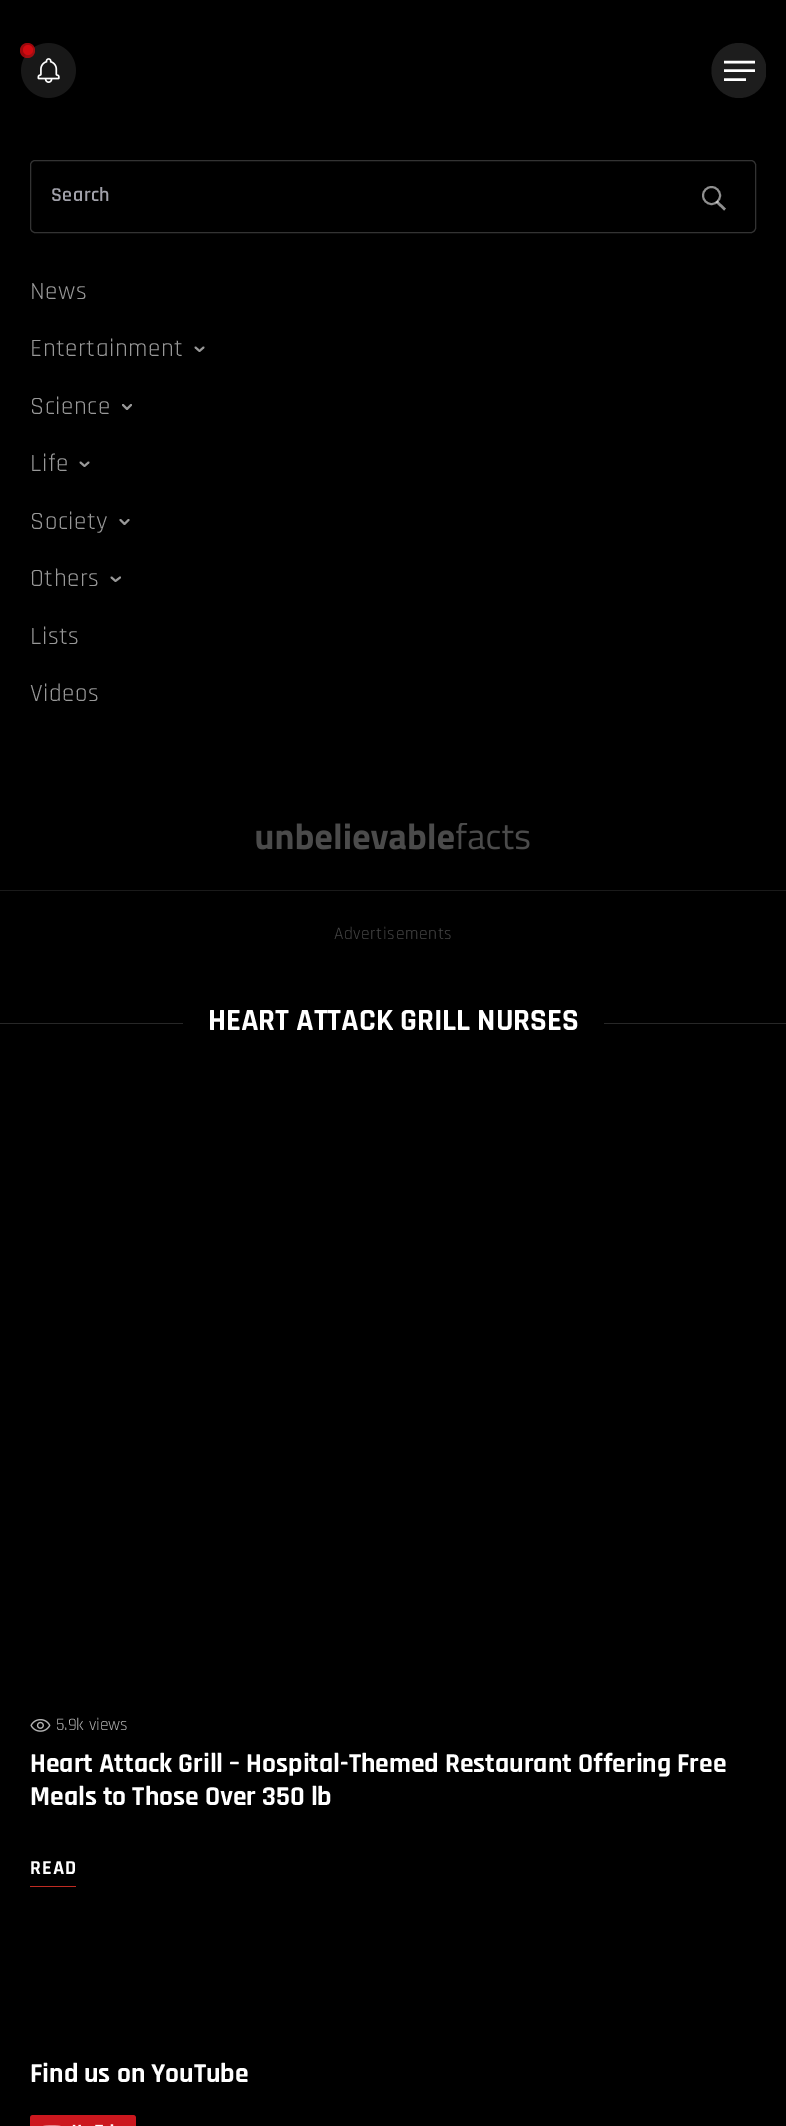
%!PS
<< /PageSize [786 2126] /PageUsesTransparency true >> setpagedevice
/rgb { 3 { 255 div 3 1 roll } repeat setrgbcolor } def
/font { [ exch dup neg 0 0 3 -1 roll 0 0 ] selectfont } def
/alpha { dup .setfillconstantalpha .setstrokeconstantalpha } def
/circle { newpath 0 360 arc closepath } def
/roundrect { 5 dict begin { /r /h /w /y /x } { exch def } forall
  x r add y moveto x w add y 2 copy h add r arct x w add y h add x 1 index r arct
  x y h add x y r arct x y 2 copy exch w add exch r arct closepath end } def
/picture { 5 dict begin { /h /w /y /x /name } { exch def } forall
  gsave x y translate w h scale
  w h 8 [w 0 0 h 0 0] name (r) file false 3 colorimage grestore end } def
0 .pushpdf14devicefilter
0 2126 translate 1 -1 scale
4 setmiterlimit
0 0 0 rgb
0 0 786 2126 rectfill
26 26 26 rgb
0 890 786 1 rectfill
(img/1.rgb) 21 43 55 55 picture
0.75 alpha
210 10 16 rgb
27.5 50.5 7.5 circle fill
1 alpha
28 50 5 circle fill
gsave
711 43 55 56 rectclip
29 29 29 rgb
739 70.5 27.5 circle fill
grestore
255 255 255 rgb
2.5 setlinewidth
724 62 moveto 755 62 lineto 724 70.5 moveto 755 70.5 lineto 724 79.5 moveto 746 79.5 lineto stroke
51 51 51 rgb
1 setlinewidth
30.5 160.5 725 72 4.5 roundrect stroke
143 143 143 rgb
2.5 setlinewidth
716.5 201.5 moveto 725 209.5 lineto stroke
0.56 alpha
255 255 255 rgb
1.9 setlinewidth
711.5 195.5 8.5 circle stroke
1 alpha
153 153 153 rgb
1 setlinecap
1 setlinejoin
195.5 347.5 moveto 199.5 351 lineto 203.5 347.5 lineto stroke
123 405 moveto 127 409 lineto 131 405 lineto stroke
80.5 462.5 moveto 84.5 466 lineto 88.5 462.5 lineto stroke
120.5 520 moveto 124.5 524 lineto 128.5 520 lineto stroke
111.5 577.5 moveto 115.5 581 lineto 120 577.5 lineto stroke
(img/2.rgb) 256 823 274 27 picture
39 39 39 rgb
0 1023 786 1 rectfill
0 0 0 rgb
183 1023 421 1 rectfill
(img/3.rgb) 30 1719 21 13 picture
191 43 34 rgb
30 1886 46 1 rectfill
(img/4.rgb) 30 2115 106 11 picture
/Rajdhani-SemiBold 20 font
161 161 170 rgb
51 201 moveto 0.5 0 (Search) ashow
/Rajdhani-Regular 25 font
153 153 153 rgb
30 299 moveto 0.6 0 (News) ashow
30 356 moveto 0.6 0 (Entertainment) ashow
30 414 moveto 0.6 0 (Science) ashow
30 471 moveto 0.6 0 (Life) ashow
30 529 moveto 0.6 0 (Society) ashow
30 586 moveto 0.6 0 (Others) ashow
30 644 moveto 0.6 0 (Lists) ashow
30 701 moveto 0.6 0 (Videos) ashow
/Rajdhani-Regular 17.5 font
69 69 69 rgb
334 939 moveto 0.6 0 (Advertisements) ashow
/Rajdhani-Bold 31.25 font
255 255 255 rgb
208 1030 moveto (HEART ATTACK GRILL NURSES) show
/Rajdhani-Regular 17.5 font
179 179 179 rgb
56 1730 moveto (5.9k views) show
/Rajdhani-Bold 27.5 font
255 255 255 rgb
30 1772 moveto (Heart Attack Grill – Hospital-Themed Restaurant Offering Free) show
30 1805 moveto (Meals to Those Over 350 lb) show
/Rajdhani-Bold 20 font
30 1874 moveto 1 0 (READ) ashow
/Rajdhani-Bold 27.5 font
30 2082 moveto (Find us on YouTube) show
.poppdf14devicefilter showpage
